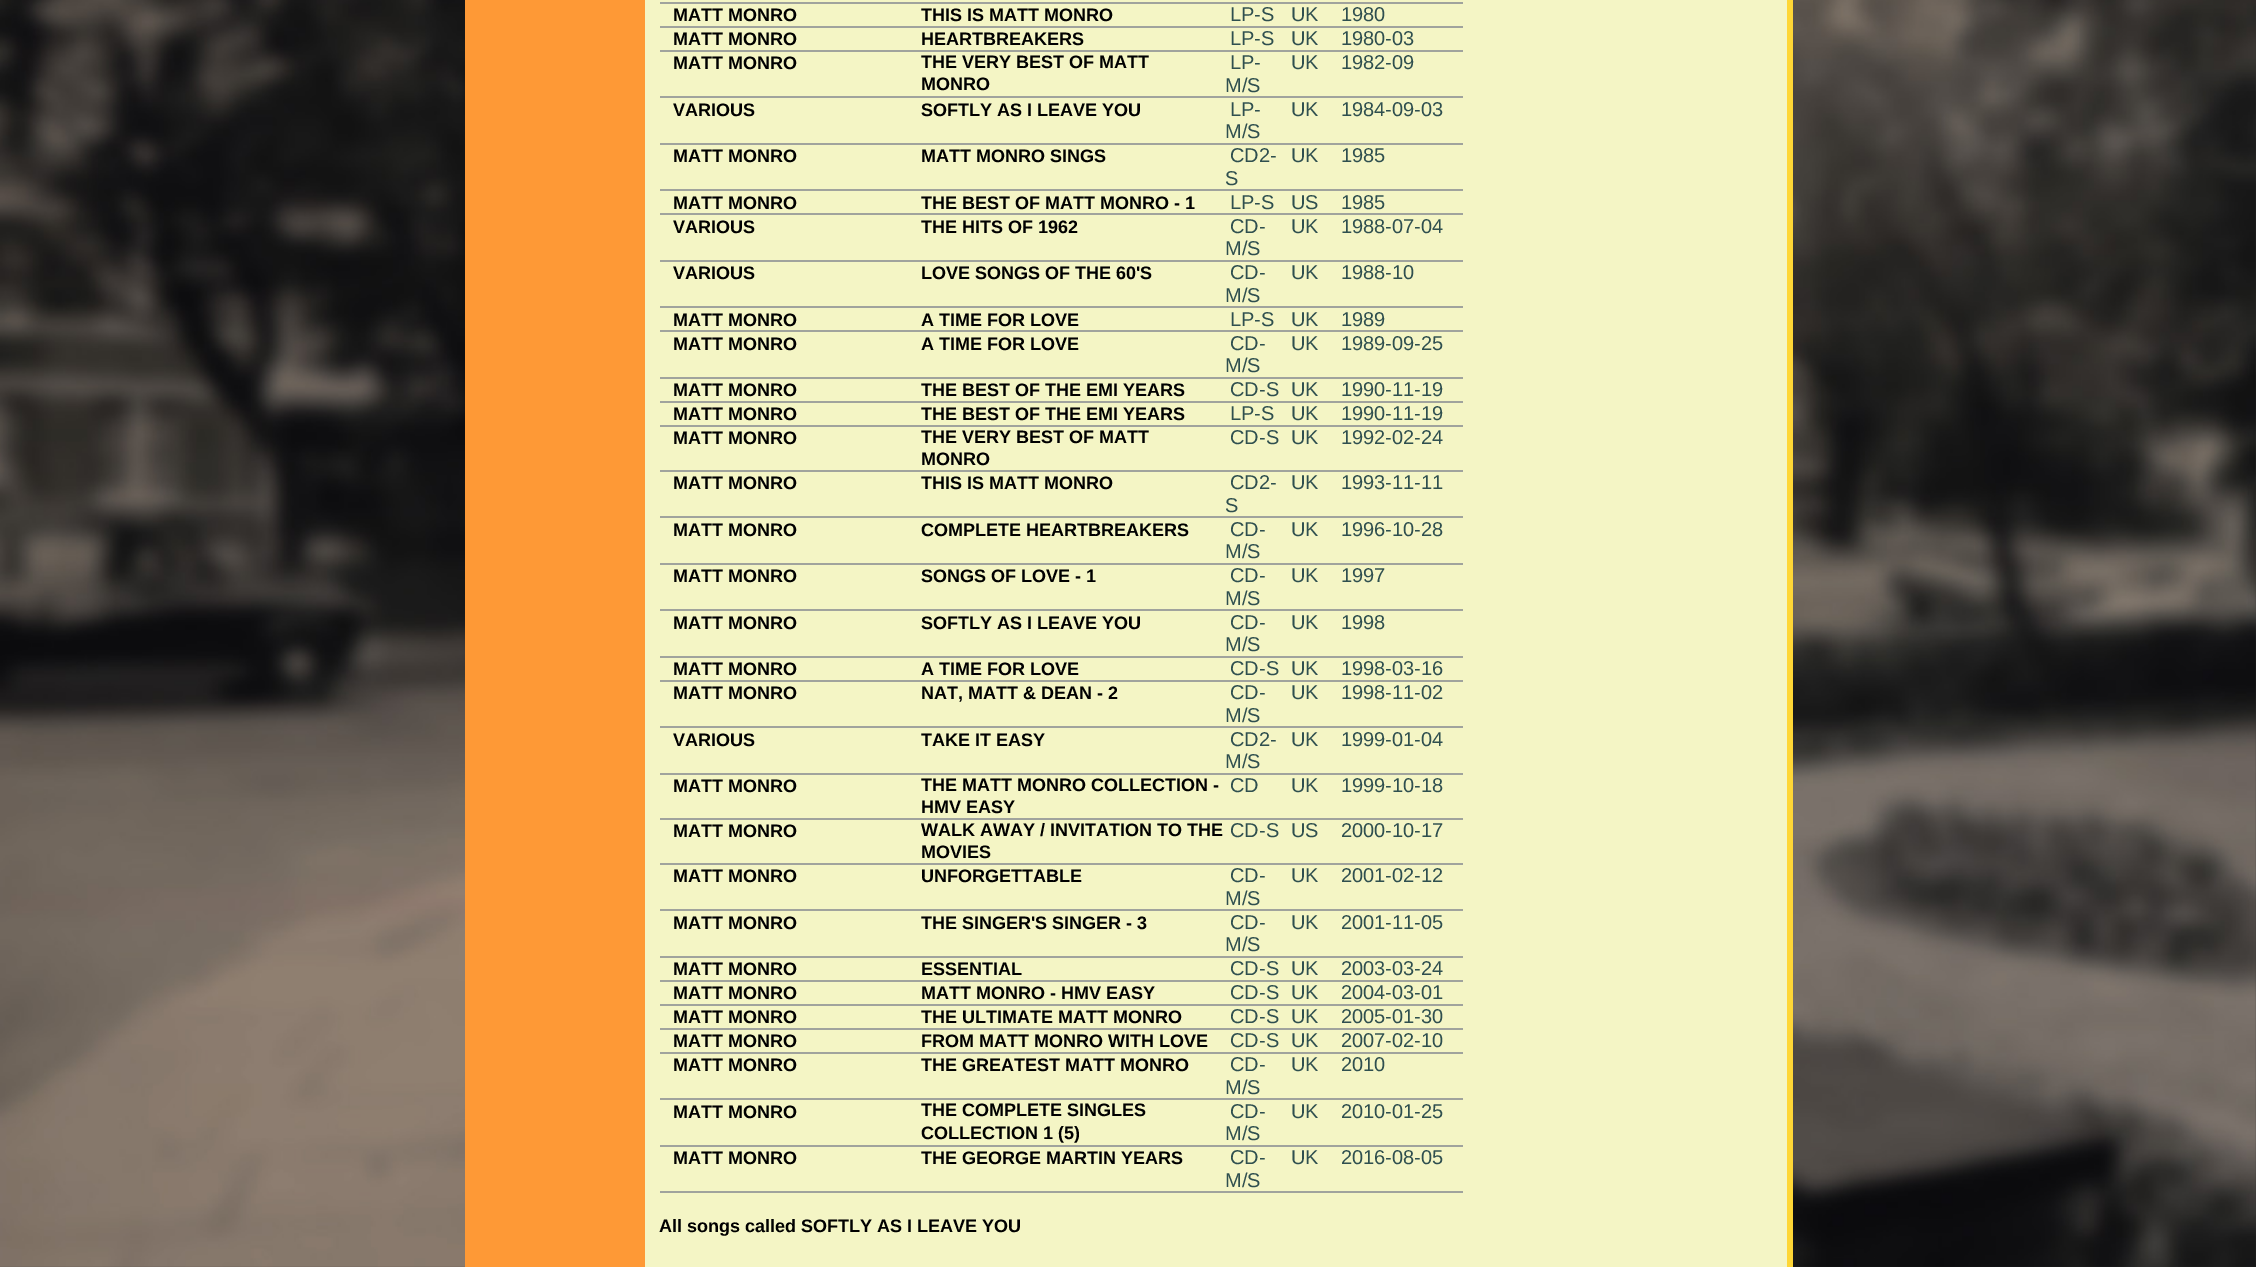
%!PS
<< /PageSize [2256 1267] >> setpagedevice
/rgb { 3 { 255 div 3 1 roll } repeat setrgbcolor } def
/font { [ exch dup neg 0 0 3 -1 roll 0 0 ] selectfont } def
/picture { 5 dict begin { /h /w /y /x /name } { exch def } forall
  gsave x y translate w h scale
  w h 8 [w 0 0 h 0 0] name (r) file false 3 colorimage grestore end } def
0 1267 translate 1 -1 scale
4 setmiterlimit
255 255 255 rgb
0 0 2256 1267 rectfill
(img/1.rgb) 0 0 2256 1267 picture
[
  [645 0 1142 1267 244 245 197]
  [465 0 180 1267 254 153 54]
  [660 2 803 2 160 163 157]
  [660 26 803 2 160 163 157]
  [660 50 803 2 160 163 157]
  [660 96 803 2 160 163 157]
  [660 143 803 2 160 163 157]
  [660 189 803 2 160 163 157]
  [660 213 803 2 160 163 157]
  [660 260 803 2 160 163 157]
  [660 306 803 2 160 163 157]
  [660 330 803 2 160 163 157]
  [660 377 803 2 160 163 157]
  [660 401 803 2 160 163 157]
  [660 425 803 2 160 163 157]
  [660 470 803 2 160 163 157]
  [660 516 803 2 160 163 157]
  [660 563 803 2 160 163 157]
  [660 609 803 2 160 163 157]
  [660 656 803 2 160 163 157]
  [660 680 803 2 160 163 157]
  [660 726 803 2 160 163 157]
  [660 773 803 2 160 163 157]
  [660 818 803 2 160 163 157]
  [660 863 803 2 160 163 157]
  [660 909 803 2 160 163 157]
  [660 956 803 2 160 163 157]
  [660 980 803 2 160 163 157]
  [660 1004 803 2 160 163 157]
  [660 1028 803 2 160 163 157]
  [660 1052 803 2 160 163 157]
  [660 1098 803 2 160 163 157]
  [660 1145 803 2 160 163 157]
  [660 1191 803 2 160 163 157]
  [1787 0 6 1267 254 214 54]
] { aload pop rgb rectfill } forall
/LiberationSans-Bold 18 font
0 0 0 rgb
673 21 moveto (MATT MONRO) show
921 21 moveto (THIS IS MATT MONRO) show
/LiberationSans-Regular 20 font
47 79 79 rgb
[
  [(LP-S) 1230 21]
  [(UK) 1291 21]
  [(1980) 1341 21]
] { aload pop moveto show } forall
/LiberationSans-Bold 18 font
0 0 0 rgb
673 45 moveto (MATT MONRO) show
921 45 moveto (HEARTBREAKERS) show
/LiberationSans-Regular 20 font
47 79 79 rgb
[
  [(LP-S) 1230 45]
  [(UK) 1291 45]
  [(1980-03) 1341 45]
] { aload pop moveto show } forall
/LiberationSans-Bold 18 font
0 0 0 rgb
[
  [(MATT MONRO) 673 69]
  [(THE VERY BEST OF MATT) 921 68]
  [(MONRO) 921 90]
] { aload pop moveto show } forall
/LiberationSans-Regular 20 font
47 79 79 rgb
[
  [(LP-) 1230 69]
  [(M/S) 1225 92]
  [(UK) 1291 69]
  [(1982-09) 1341 69]
] { aload pop moveto show } forall
/LiberationSans-Bold 18 font
0 0 0 rgb
673 116 moveto (VARIOUS) show
921 116 moveto (SOFTLY AS I LEAVE YOU) show
/LiberationSans-Regular 20 font
47 79 79 rgb
[
  [(LP-) 1230 116]
  [(M/S) 1225 138]
  [(UK) 1291 116]
  [(1984-09-03) 1341 116]
] { aload pop moveto show } forall
/LiberationSans-Bold 18 font
0 0 0 rgb
673 162 moveto (MATT MONRO) show
921 162 moveto (MATT MONRO SINGS) show
/LiberationSans-Regular 20 font
47 79 79 rgb
[
  [(CD2-) 1230 162]
  [(S) 1225 185]
  [(UK) 1291 162]
  [(1985) 1341 162]
] { aload pop moveto show } forall
/LiberationSans-Bold 18 font
0 0 0 rgb
673 209 moveto (MATT MONRO) show
921 209 moveto (THE BEST OF MATT MONRO - 1) show
/LiberationSans-Regular 20 font
47 79 79 rgb
[
  [(LP-S) 1230 209]
  [(US) 1291 209]
  [(1985) 1341 209]
] { aload pop moveto show } forall
/LiberationSans-Bold 18 font
0 0 0 rgb
673 233 moveto (VARIOUS) show
921 233 moveto (THE HITS OF 1962) show
/LiberationSans-Regular 20 font
47 79 79 rgb
[
  [(CD-) 1230 233]
  [(M/S) 1225 255]
  [(UK) 1291 233]
  [(1988-07-04) 1341 233]
] { aload pop moveto show } forall
/LiberationSans-Bold 18 font
0 0 0 rgb
673 279 moveto (VARIOUS) show
921 279 moveto (LOVE SONGS OF THE 60'S) show
/LiberationSans-Regular 20 font
47 79 79 rgb
[
  [(CD-) 1230 279]
  [(M/S) 1225 302]
  [(UK) 1291 279]
  [(1988-10) 1341 279]
] { aload pop moveto show } forall
/LiberationSans-Bold 18 font
0 0 0 rgb
673 326 moveto (MATT MONRO) show
921 326 moveto (A TIME FOR LOVE) show
/LiberationSans-Regular 20 font
47 79 79 rgb
[
  [(LP-S) 1230 326]
  [(UK) 1291 326]
  [(1989) 1341 326]
] { aload pop moveto show } forall
/LiberationSans-Bold 18 font
0 0 0 rgb
673 350 moveto (MATT MONRO) show
921 350 moveto (A TIME FOR LOVE) show
/LiberationSans-Regular 20 font
47 79 79 rgb
[
  [(CD-) 1230 350]
  [(M/S) 1225 372]
  [(UK) 1291 350]
  [(1989-09-25) 1341 350]
] { aload pop moveto show } forall
/LiberationSans-Bold 18 font
0 0 0 rgb
673 396 moveto (MATT MONRO) show
921 396 moveto (THE BEST OF THE EMI YEARS) show
/LiberationSans-Regular 20 font
47 79 79 rgb
[
  [(CD-S) 1230 396]
  [(UK) 1291 396]
  [(1990-11-19) 1341 396]
] { aload pop moveto show } forall
/LiberationSans-Bold 18 font
0 0 0 rgb
673 420 moveto (MATT MONRO) show
921 420 moveto (THE BEST OF THE EMI YEARS) show
/LiberationSans-Regular 20 font
47 79 79 rgb
[
  [(LP-S) 1230 420]
  [(UK) 1291 420]
  [(1990-11-19) 1341 420]
] { aload pop moveto show } forall
/LiberationSans-Bold 18 font
0 0 0 rgb
[
  [(MATT MONRO) 673 444]
  [(THE VERY BEST OF MATT) 921 443]
  [(MONRO) 921 465]
] { aload pop moveto show } forall
/LiberationSans-Regular 20 font
47 79 79 rgb
[
  [(CD-S) 1230 444]
  [(UK) 1291 444]
  [(1992-02-24) 1341 444]
] { aload pop moveto show } forall
/LiberationSans-Bold 18 font
0 0 0 rgb
673 489 moveto (MATT MONRO) show
921 489 moveto (THIS IS MATT MONRO) show
/LiberationSans-Regular 20 font
47 79 79 rgb
[
  [(CD2-) 1230 489]
  [(S) 1225 512]
  [(UK) 1291 489]
  [(1993-11-11) 1341 489]
] { aload pop moveto show } forall
/LiberationSans-Bold 18 font
0 0 0 rgb
673 536 moveto (MATT MONRO) show
921 536 moveto (COMPLETE HEARTBREAKERS) show
/LiberationSans-Regular 20 font
47 79 79 rgb
[
  [(CD-) 1230 536]
  [(M/S) 1225 558]
  [(UK) 1291 536]
  [(1996-10-28) 1341 536]
] { aload pop moveto show } forall
/LiberationSans-Bold 18 font
0 0 0 rgb
673 582 moveto (MATT MONRO) show
921 582 moveto (SONGS OF LOVE - 1) show
/LiberationSans-Regular 20 font
47 79 79 rgb
[
  [(CD-) 1230 582]
  [(M/S) 1225 605]
  [(UK) 1291 582]
  [(1997) 1341 582]
] { aload pop moveto show } forall
/LiberationSans-Bold 18 font
0 0 0 rgb
673 629 moveto (MATT MONRO) show
921 629 moveto (SOFTLY AS I LEAVE YOU) show
/LiberationSans-Regular 20 font
47 79 79 rgb
[
  [(CD-) 1230 629]
  [(M/S) 1225 651]
  [(UK) 1291 629]
  [(1998) 1341 629]
] { aload pop moveto show } forall
/LiberationSans-Bold 18 font
0 0 0 rgb
673 675 moveto (MATT MONRO) show
921 675 moveto (A TIME FOR LOVE) show
/LiberationSans-Regular 20 font
47 79 79 rgb
[
  [(CD-S) 1230 675]
  [(UK) 1291 675]
  [(1998-03-16) 1341 675]
] { aload pop moveto show } forall
/LiberationSans-Bold 18 font
0 0 0 rgb
673 699 moveto (MATT MONRO) show
921 699 moveto (NAT, MATT & DEAN - 2) show
/LiberationSans-Regular 20 font
47 79 79 rgb
[
  [(CD-) 1230 699]
  [(M/S) 1225 722]
  [(UK) 1291 699]
  [(1998-11-02) 1341 699]
] { aload pop moveto show } forall
/LiberationSans-Bold 18 font
0 0 0 rgb
673 746 moveto (VARIOUS) show
921 746 moveto (TAKE IT EASY) show
/LiberationSans-Regular 20 font
47 79 79 rgb
[
  [(CD2-) 1230 746]
  [(M/S) 1225 768]
  [(UK) 1291 746]
  [(1999-01-04) 1341 746]
] { aload pop moveto show } forall
/LiberationSans-Bold 18 font
0 0 0 rgb
[
  [(MATT MONRO) 673 792]
  [(THE MATT MONRO COLLECTION -) 921 791]
  [(HMV EASY) 921 813]
] { aload pop moveto show } forall
/LiberationSans-Regular 20 font
47 79 79 rgb
[
  [(CD) 1230 792]
  [(UK) 1291 792]
  [(1999-10-18) 1341 792]
] { aload pop moveto show } forall
/LiberationSans-Bold 18 font
0 0 0 rgb
[
  [(MATT MONRO) 673 837]
  [(WALK AWAY / INVITATION TO THE) 921 836]
  [(MOVIES) 921 858]
] { aload pop moveto show } forall
/LiberationSans-Regular 20 font
47 79 79 rgb
[
  [(CD-S) 1230 837]
  [(US) 1291 837]
  [(2000-10-17) 1341 837]
] { aload pop moveto show } forall
/LiberationSans-Bold 18 font
0 0 0 rgb
673 882 moveto (MATT MONRO) show
921 882 moveto (UNFORGETTABLE) show
/LiberationSans-Regular 20 font
47 79 79 rgb
[
  [(CD-) 1230 882]
  [(M/S) 1225 905]
  [(UK) 1291 882]
  [(2001-02-12) 1341 882]
] { aload pop moveto show } forall
/LiberationSans-Bold 18 font
0 0 0 rgb
673 929 moveto (MATT MONRO) show
921 929 moveto (THE SINGER'S SINGER - 3) show
/LiberationSans-Regular 20 font
47 79 79 rgb
[
  [(CD-) 1230 929]
  [(M/S) 1225 951]
  [(UK) 1291 929]
  [(2001-11-05) 1341 929]
] { aload pop moveto show } forall
/LiberationSans-Bold 18 font
0 0 0 rgb
673 975 moveto (MATT MONRO) show
921 975 moveto (ESSENTIAL) show
/LiberationSans-Regular 20 font
47 79 79 rgb
[
  [(CD-S) 1230 975]
  [(UK) 1291 975]
  [(2003-03-24) 1341 975]
] { aload pop moveto show } forall
/LiberationSans-Bold 18 font
0 0 0 rgb
673 999 moveto (MATT MONRO) show
921 999 moveto (MATT MONRO - HMV EASY) show
/LiberationSans-Regular 20 font
47 79 79 rgb
[
  [(CD-S) 1230 999]
  [(UK) 1291 999]
  [(2004-03-01) 1341 999]
] { aload pop moveto show } forall
/LiberationSans-Bold 18 font
0 0 0 rgb
673 1023 moveto (MATT MONRO) show
921 1023 moveto (THE ULTIMATE MATT MONRO) show
/LiberationSans-Regular 20 font
47 79 79 rgb
[
  [(CD-S) 1230 1023]
  [(UK) 1291 1023]
  [(2005-01-30) 1341 1023]
] { aload pop moveto show } forall
/LiberationSans-Bold 18 font
0 0 0 rgb
673 1047 moveto (MATT MONRO) show
921 1047 moveto (FROM MATT MONRO WITH LOVE) show
/LiberationSans-Regular 20 font
47 79 79 rgb
[
  [(CD-S) 1230 1047]
  [(UK) 1291 1047]
  [(2007-02-10) 1341 1047]
] { aload pop moveto show } forall
/LiberationSans-Bold 18 font
0 0 0 rgb
673 1071 moveto (MATT MONRO) show
921 1071 moveto (THE GREATEST MATT MONRO) show
/LiberationSans-Regular 20 font
47 79 79 rgb
[
  [(CD-) 1230 1071]
  [(M/S) 1225 1094]
  [(UK) 1291 1071]
  [(2010) 1341 1071]
] { aload pop moveto show } forall
/LiberationSans-Bold 18 font
0 0 0 rgb
[
  [(MATT MONRO) 673 1118]
  [(THE COMPLETE SINGLES) 921 1116]
  [(COLLECTION 1 \(5\)) 921 1139]
] { aload pop moveto show } forall
/LiberationSans-Regular 20 font
47 79 79 rgb
[
  [(CD-) 1230 1118]
  [(M/S) 1225 1140]
  [(UK) 1291 1118]
  [(2010-01-25) 1341 1118]
] { aload pop moveto show } forall
/LiberationSans-Bold 18 font
0 0 0 rgb
673 1164 moveto (MATT MONRO) show
921 1164 moveto (THE GEORGE MARTIN YEARS) show
/LiberationSans-Regular 20 font
47 79 79 rgb
[
  [(CD-) 1230 1164]
  [(M/S) 1225 1187]
  [(UK) 1291 1164]
  [(2016-08-05) 1341 1164]
] { aload pop moveto show } forall
/LiberationSans-Bold 18 font
0 0 0 rgb
659 1232 moveto (All songs called SOFTLY AS I LEAVE YOU) show
showpage
